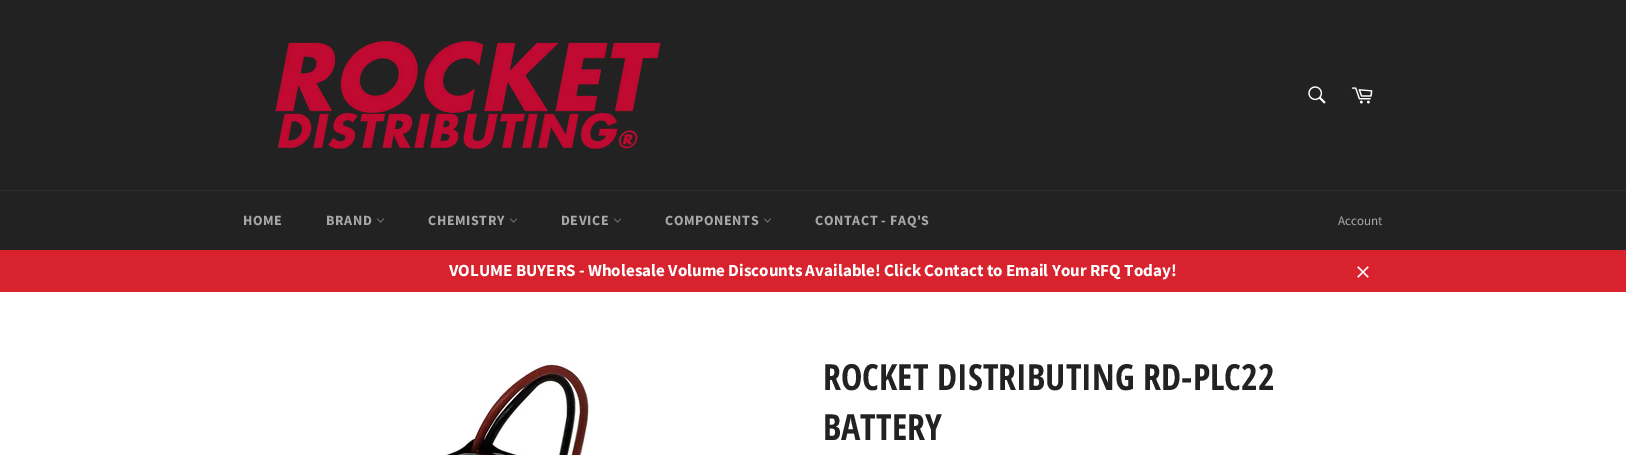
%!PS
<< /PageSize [1626 455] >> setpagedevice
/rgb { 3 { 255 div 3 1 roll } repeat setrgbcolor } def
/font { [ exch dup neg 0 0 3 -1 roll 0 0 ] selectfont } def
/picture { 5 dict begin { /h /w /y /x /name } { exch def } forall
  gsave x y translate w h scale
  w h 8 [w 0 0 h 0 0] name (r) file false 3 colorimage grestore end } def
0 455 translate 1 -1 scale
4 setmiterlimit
34 34 34 rgb
0 0 1626 455 rectfill
(img/1.rgb) 275 41 386 108 picture
(img/2.rgb) 1308 86 18 18 picture
(img/3.rgb) 1351 87 22 17 picture
47 47 47 rgb
0 190 1626 1 rectfill
(img/4.rgb) 377 218 7 5 picture
(img/4.rgb) 510 218 7 5 picture
(img/4.rgb) 614 218 7 5 picture
(img/4.rgb) 764 218 7 5 picture
216 35 47 rgb
0 250 1626 42 rectfill
(img/5.rgb) 1357 266 12 12 picture
255 255 255 rgb
0 292 1626 163 rectfill
(img/6.rgb) 446 364 145 91 picture
/SourceSansPro-Bold 14 font
167 167 167 rgb
243 225 moveto 0.6 0 (HOME) ashow
326 225 moveto 0.6 0 (BRAND) ashow
428 225 moveto 0.6 0 (CHEMISTRY) ashow
561 225 moveto 0.6 0 (DEVICE) ashow
665 225 moveto 0.6 0 (COMPONENTS) ashow
815 225 moveto 0.6 0 (CONTACT - FAQ'S) ashow
/SourceSansPro-Regular 13 font
1338 225 moveto (Account) show
/SourceSansPro-Bold 17 font
255 255 255 rgb
449 276 moveto (VOLUME BUYERS - Wholesale Volume Discounts Available! Click Contact to Email Your RFQ Today!) show
/OpenSansCondensed-Bold 36 font
34 34 34 rgb
823 390 moveto (ROCKET DISTRIBUTING RD-PLC22) show
823 440 moveto (BATTERY) show
showpage
